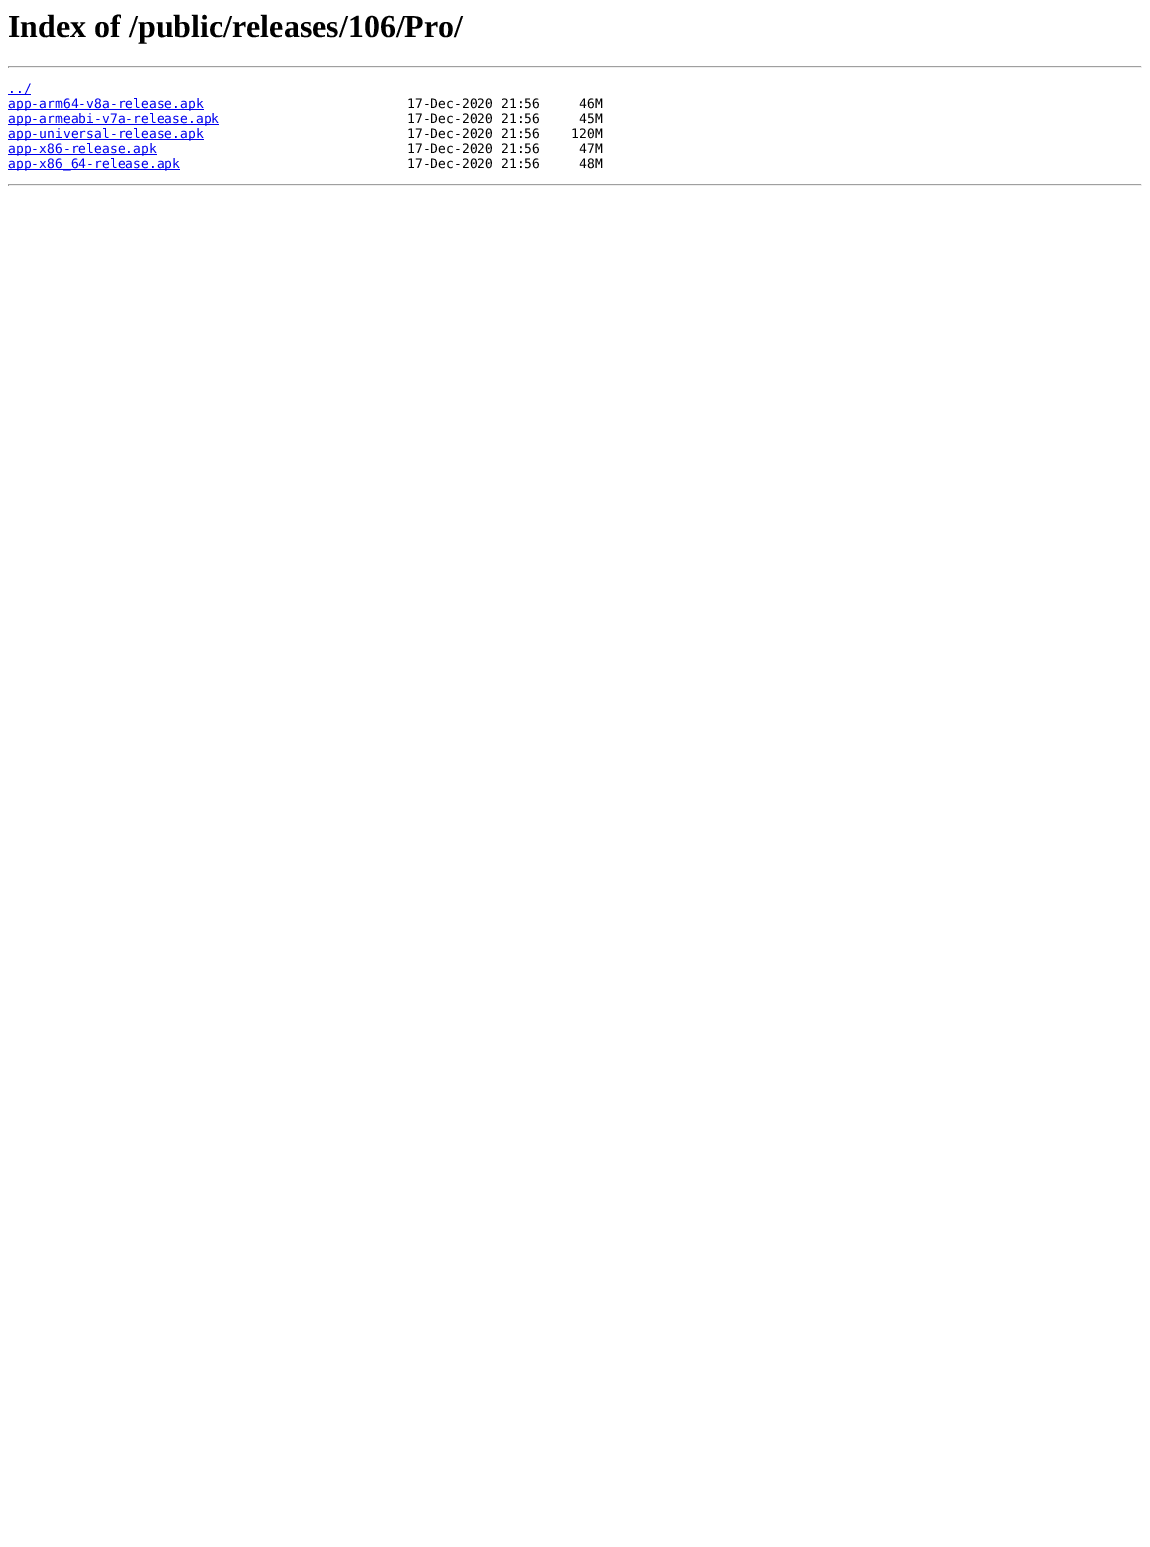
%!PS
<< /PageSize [1150 1547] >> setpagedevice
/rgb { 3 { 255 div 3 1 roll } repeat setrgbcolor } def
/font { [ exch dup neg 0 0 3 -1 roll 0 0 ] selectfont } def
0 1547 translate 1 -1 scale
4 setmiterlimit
255 255 255 rgb
0 0 1150 1547 rectfill
[
  [8 66 1134 1 159 159 159]
  [1141 66 1 2 238 238 238]
  [8 67 1134 1 238 238 238]
  [8 66 1 2 159 159 159]
  [8 94 23 1 0 0 238]
  [8 109 196 1 0 0 238]
  [8 124 211 1 0 0 238]
  [8 139 196 1 0 0 238]
  [8 154 149 1 0 0 238]
  [8 169 172 1 0 0 238]
  [8 184 1134 1 159 159 159]
  [1141 184 1 2 238 238 238]
  [8 185 1134 1 238 238 238]
  [8 184 1 2 159 159 159]
] { aload pop rgb rectfill } forall
/LiberationSerif-Bold 32 font
0 0 0 rgb
8 37 moveto (Index of /public/releases/106/Pro/) show
/DejaVuSansMono-Regular 13 font
0 0 238 rgb
8 93 moveto (../) show
8 108 moveto (app-arm64-v8a-release.apk) show
0 0 0 rgb
407 108 moveto (17-Dec-2020 21:56     46M) show
0 0 238 rgb
8 123 moveto (app-armeabi-v7a-release.apk) show
0 0 0 rgb
407 123 moveto (17-Dec-2020 21:56     45M) show
0 0 238 rgb
8 138 moveto (app-universal-release.apk) show
0 0 0 rgb
407 138 moveto (17-Dec-2020 21:56    120M) show
0 0 238 rgb
8 153 moveto (app-x86-release.apk) show
0 0 0 rgb
407 153 moveto (17-Dec-2020 21:56     47M) show
0 0 238 rgb
8 168 moveto (app-x86_64-release.apk) show
0 0 0 rgb
407 168 moveto (17-Dec-2020 21:56     48M) show
showpage
